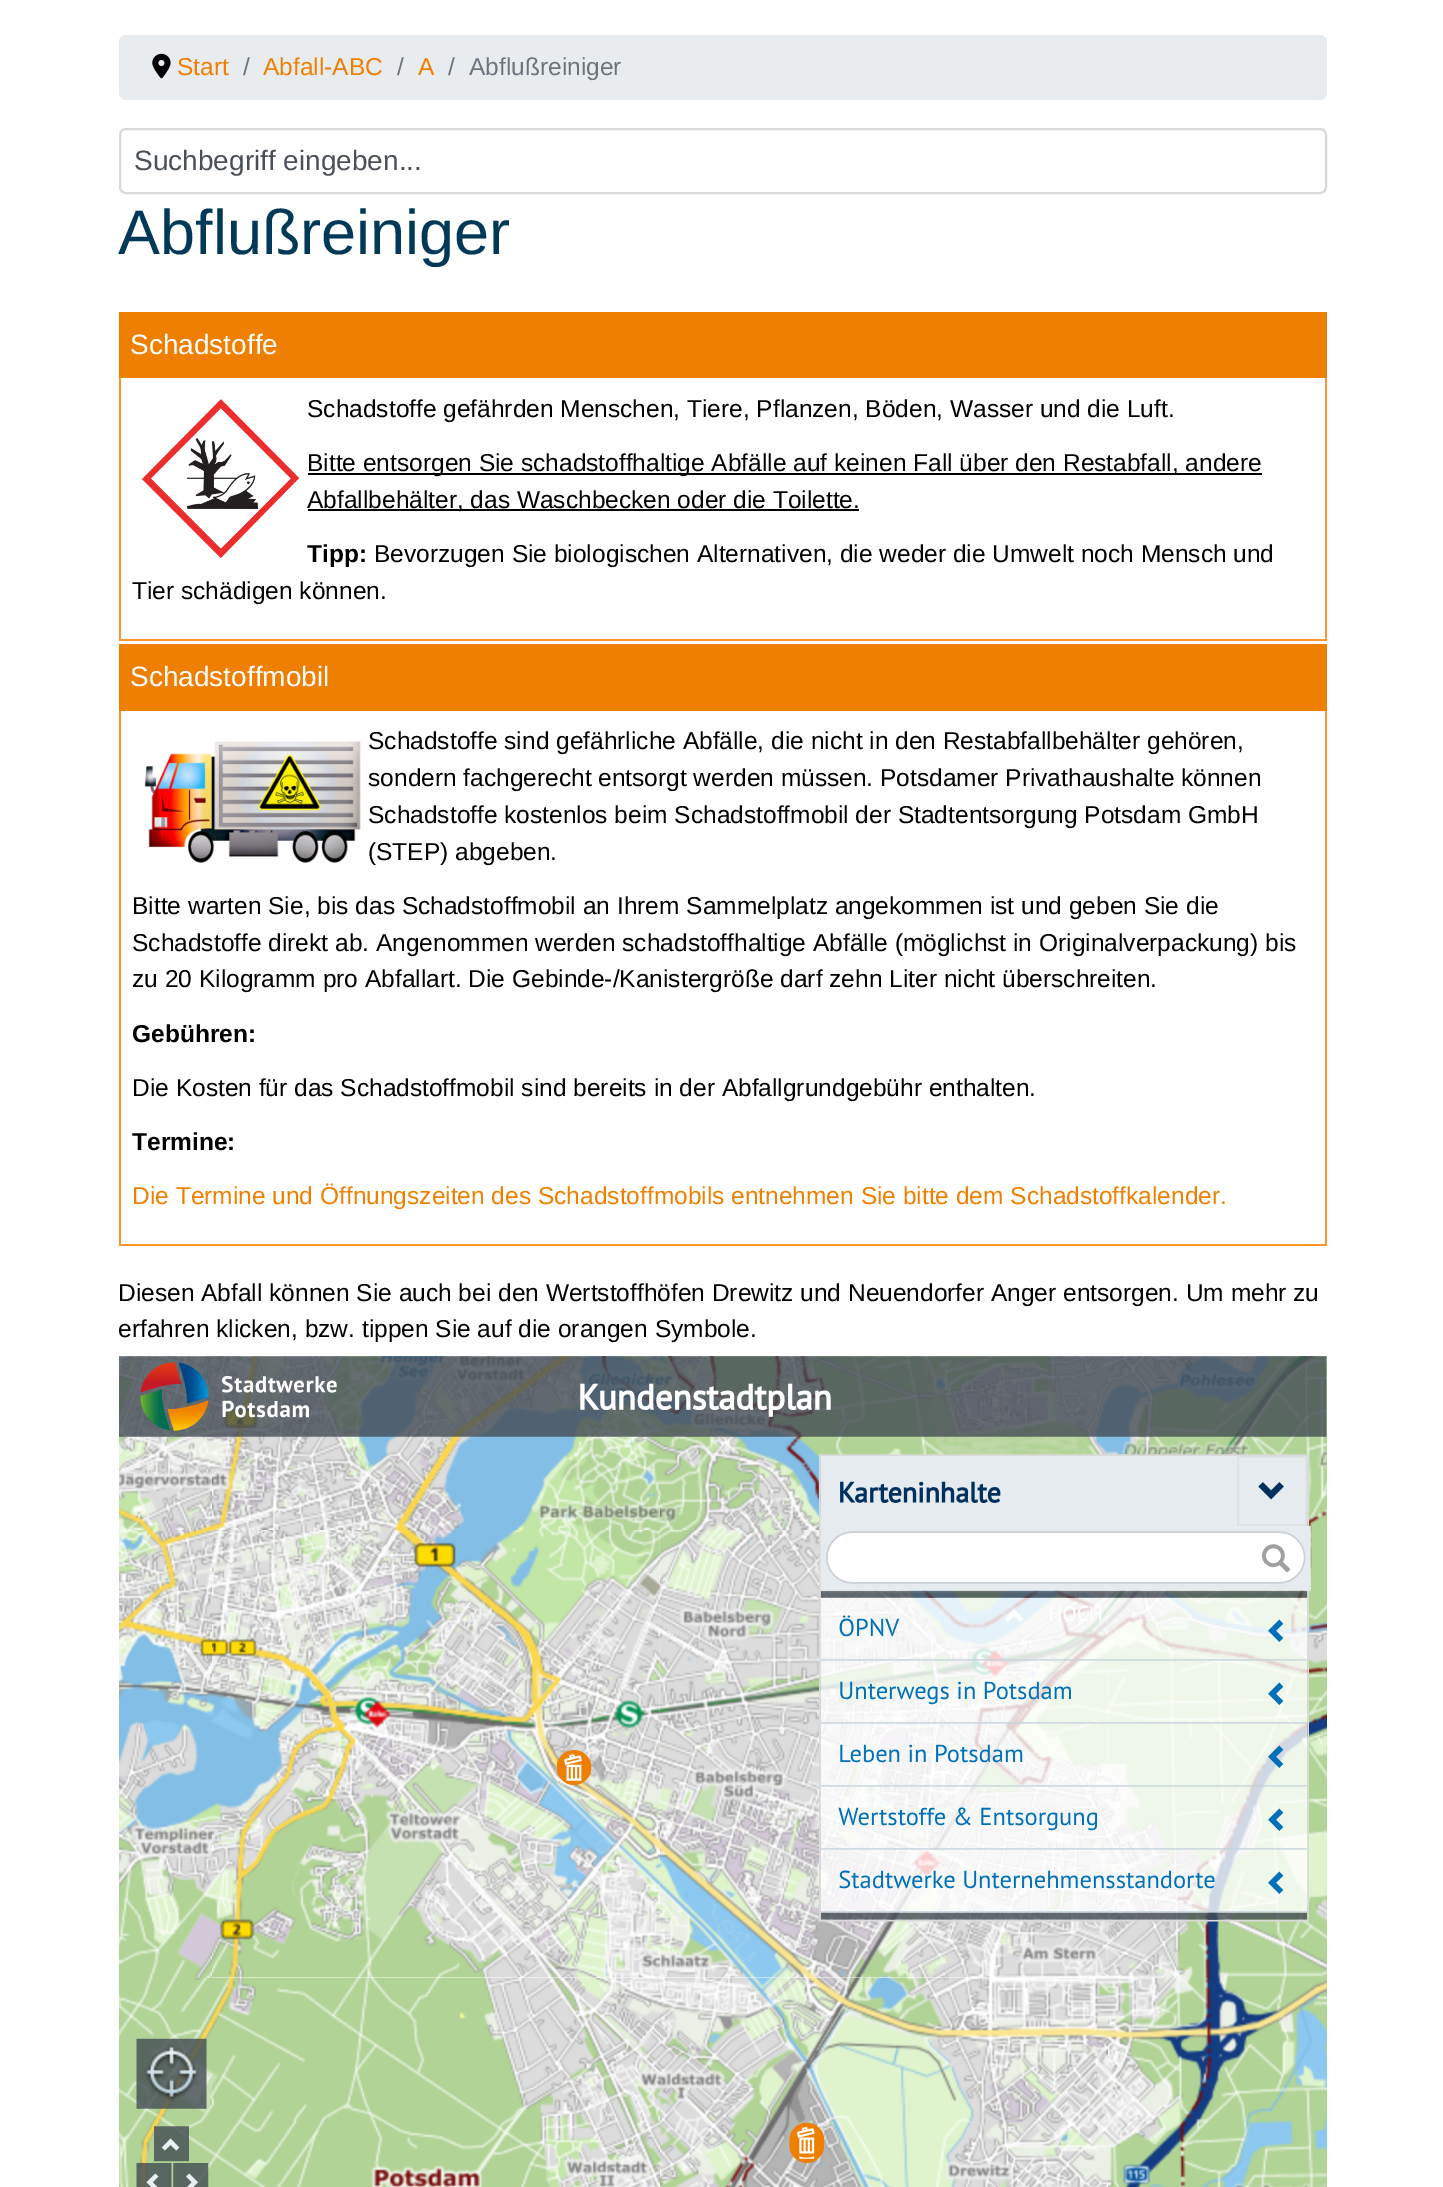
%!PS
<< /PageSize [1443 2187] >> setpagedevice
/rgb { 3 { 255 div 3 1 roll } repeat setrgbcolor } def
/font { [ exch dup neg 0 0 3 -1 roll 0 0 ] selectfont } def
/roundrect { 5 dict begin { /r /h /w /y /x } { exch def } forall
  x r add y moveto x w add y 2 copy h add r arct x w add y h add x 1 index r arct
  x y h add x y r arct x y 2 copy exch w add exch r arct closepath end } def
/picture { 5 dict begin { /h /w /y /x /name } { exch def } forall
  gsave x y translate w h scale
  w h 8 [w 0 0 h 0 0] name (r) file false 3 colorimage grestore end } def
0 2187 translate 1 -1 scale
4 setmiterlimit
255 255 255 rgb
0 0 1443 2187 rectfill
233 236 239 rgb
119 35 1208 65 7 roundrect fill
(img/1.rgb) 152 53 19 26 picture
217 217 217 rgb
2 setlinewidth
120 129 1206 64 6 roundrect stroke
[
  [119 312 1208 66 238 127 0]
  [1325 378 2 263 255 148 44]
  [119 639 1208 2 255 148 44]
  [119 378 2 263 255 148 44]
] { aload pop rgb rectfill } forall
(img/2.rgb) 141 399 159 160 picture
[
  [308 473 954 2 0 0 0]
  [308 509 551 2 0 0 0]
  [119 644 1208 67 238 127 0]
  [1325 711 2 535 255 148 44]
  [119 1244 1208 2 255 148 44]
  [119 711 2 535 255 148 44]
] { aload pop rgb rectfill } forall
(img/3.rgb) 144 741 217 122 picture
(img/4.rgb) 119 1356 1208 831 picture
/LiberationSans-Regular 24.5 font
238 127 0 rgb
177 75 moveto (Start) show
108 117 125 rgb
243 75 moveto (/) show
238 127 0 rgb
263 75 moveto (Abfall-ABC) show
108 117 125 rgb
397 75 moveto (/) show
238 127 0 rgb
418 75 moveto (A) show
108 117 125 rgb
448 75 moveto (/) show
469 75 moveto (Abflußreiniger) show
/LiberationSans-Regular 28 font
73 80 87 rgb
134 170 moveto (Suchbegriff eingeben...) show
/LiberationSans-Regular 63 font
0 57 88 rgb
118 254 moveto (Abflußreiniger) show
/LiberationSans-Regular 28 font
255 255 255 rgb
130 354 moveto (Schadstoffe) show
/LiberationSans-Regular 24.5 font
0 0 0 rgb
[
  [(Schadstoffe gefährden Menschen, Tiere, Pflanzen, Böden, Wasser und die Luft.) 307 417]
  [(Bitte entsorgen Sie schadstoffhaltige Abfälle auf keinen Fall über den Restabfall, andere) 307 471]
  [(Abfallbehälter, das Waschbecken oder die Toilette.) 307 508]
] { aload pop moveto show } forall
/LiberationSans-Bold 24.5 font
307 562 moveto (Tipp:) show
/LiberationSans-Regular 24.5 font
374 562 moveto (Bevorzugen Sie biologischen Alternativen, die weder die Umwelt noch Mensch und) show
132 599 moveto (Tier schädigen können.) show
/LiberationSans-Regular 28 font
255 255 255 rgb
130 686 moveto (Schadstoffmobil) show
/LiberationSans-Regular 24.5 font
0 0 0 rgb
[
  [(Schadstoffe sind gefährliche Abfälle, die nicht in den Restabfallbehälter gehören,) 368 749]
  [(sondern fachgerecht entsorgt werden müssen. Potsdamer Privathaushalte können) 368 786]
  [(Schadstoffe kostenlos beim Schadstoffmobil der Stadtentsorgung Potsdam GmbH) 368 823]
  [(\(STEP\) abgeben.) 368 860]
  [(Bitte warten Sie, bis das Schadstoffmobil an Ihrem Sammelplatz angekommen ist und geben Sie die) 132 914]
  [(Schadstoffe direkt ab. Angenommen werden schadstoffhaltige Abfälle \(möglichst in Originalverpackung\) bis) 132 951]
  [(zu 20 Kilogramm pro Abfallart. Die Gebinde-/Kanistergröße darf zehn Liter nicht überschreiten.) 132 987]
] { aload pop moveto show } forall
/LiberationSans-Bold 24.5 font
132 1042 moveto (Gebühren:) show
/LiberationSans-Regular 24.5 font
132 1096 moveto (Die Kosten für das Schadstoffmobil sind bereits in der Abfallgrundgebühr enthalten.) show
/LiberationSans-Bold 24.5 font
132 1150 moveto (Termine:) show
/LiberationSans-Regular 24.5 font
238 127 0 rgb
132 1204 moveto (Die Termine und Öffnungszeiten des Schadstoffmobils entnehmen Sie bitte dem Schadstoffkalender.) show
0 0 0 rgb
118 1301 moveto (Diesen Abfall können Sie auch bei den Wertstoffhöfen Drewitz und Neuendorfer Anger entsorgen. Um mehr zu) show
118 1337 moveto (erfahren klicken, bzw. tippen Sie auf die orangen Symbole.) show
showpage
